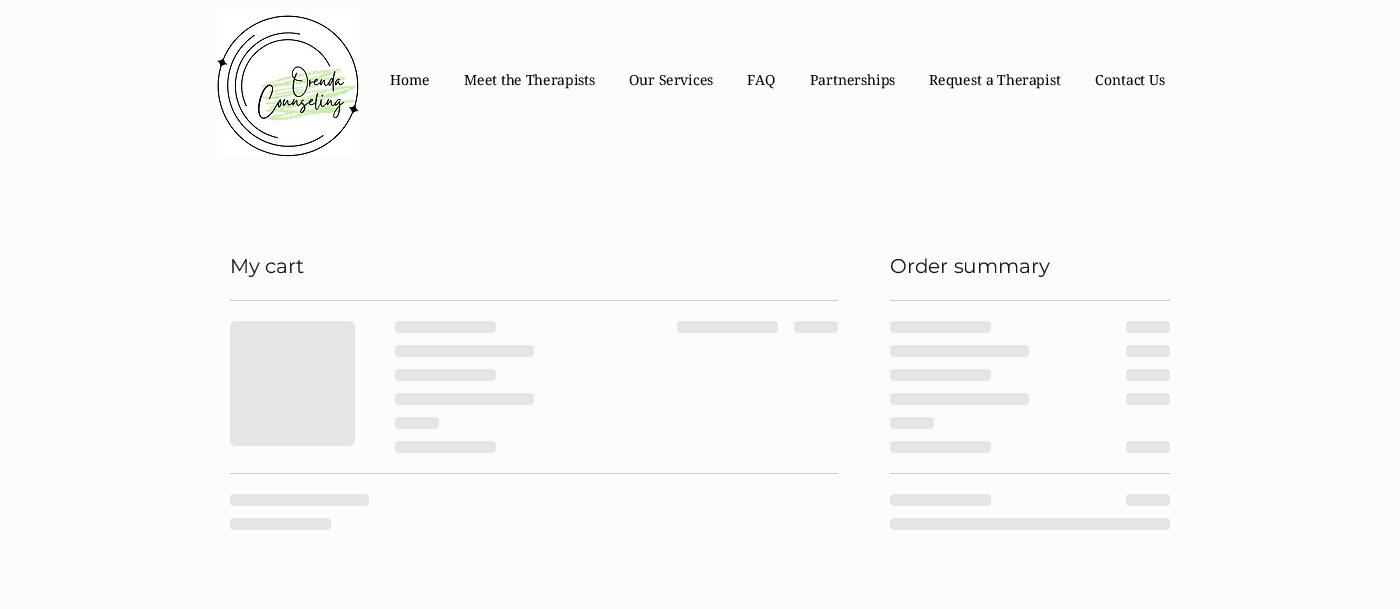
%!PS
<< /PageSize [1400 609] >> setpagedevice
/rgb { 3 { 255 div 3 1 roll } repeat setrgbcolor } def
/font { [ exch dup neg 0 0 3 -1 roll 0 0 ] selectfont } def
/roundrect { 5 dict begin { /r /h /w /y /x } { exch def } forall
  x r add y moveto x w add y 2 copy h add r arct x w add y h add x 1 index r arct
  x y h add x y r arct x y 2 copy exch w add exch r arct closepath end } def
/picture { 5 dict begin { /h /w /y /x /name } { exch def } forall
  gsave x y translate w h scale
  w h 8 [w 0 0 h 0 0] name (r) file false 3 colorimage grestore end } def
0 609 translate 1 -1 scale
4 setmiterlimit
252 253 251 rgb
0 0 1400 609 rectfill
(img/1.rgb) 217 15 142 142 picture
206 207 205 rgb
230 300 608 1 rectfill
gsave 230 321 125 125 8 roundrect clip newpath
<< /ShadingType 2 /ColorSpace /DeviceRGB /Coords [230 384 730 384] /Extend [true true] /Function << /FunctionType 3 /Domain [0 1] /Functions [<< /FunctionType 2 /Domain [0 1] /C0 [0.898 0.902 0.894] /C1 [0.898 0.902 0.894] /N 1 >> << /FunctionType 2 /Domain [0 1] /C0 [0.898 0.902 0.894] /C1 [0.808 0.812 0.804] /N 1 >> << /FunctionType 2 /Domain [0 1] /C0 [0.808 0.812 0.804] /C1 [0.898 0.902 0.894] /N 1 >> << /FunctionType 2 /Domain [0 1] /C0 [0.898 0.902 0.894] /C1 [0.898 0.902 0.894] /N 1 >>] /Bounds [0.25 0.37 0.63] /Encode [0 1 0 1 0 1 0 1] >> >> shfill grestore
gsave 395 321 101 12 6 roundrect clip newpath
<< /ShadingType 2 /ColorSpace /DeviceRGB /Coords [395 327 799 327] /Extend [true true] /Function << /FunctionType 3 /Domain [0 1] /Functions [<< /FunctionType 2 /Domain [0 1] /C0 [0.898 0.902 0.894] /C1 [0.898 0.902 0.894] /N 1 >> << /FunctionType 2 /Domain [0 1] /C0 [0.898 0.902 0.894] /C1 [0.808 0.812 0.804] /N 1 >> << /FunctionType 2 /Domain [0 1] /C0 [0.808 0.812 0.804] /C1 [0.898 0.902 0.894] /N 1 >> << /FunctionType 2 /Domain [0 1] /C0 [0.898 0.902 0.894] /C1 [0.898 0.902 0.894] /N 1 >>] /Bounds [0.25 0.37 0.63] /Encode [0 1 0 1 0 1 0 1] >> >> shfill grestore
gsave 395 345 139 12 6 roundrect clip newpath
<< /ShadingType 2 /ColorSpace /DeviceRGB /Coords [395 351 951 351] /Extend [true true] /Function << /FunctionType 3 /Domain [0 1] /Functions [<< /FunctionType 2 /Domain [0 1] /C0 [0.898 0.902 0.894] /C1 [0.898 0.902 0.894] /N 1 >> << /FunctionType 2 /Domain [0 1] /C0 [0.898 0.902 0.894] /C1 [0.808 0.812 0.804] /N 1 >> << /FunctionType 2 /Domain [0 1] /C0 [0.808 0.812 0.804] /C1 [0.898 0.902 0.894] /N 1 >> << /FunctionType 2 /Domain [0 1] /C0 [0.898 0.902 0.894] /C1 [0.898 0.902 0.894] /N 1 >>] /Bounds [0.25 0.37 0.63] /Encode [0 1 0 1 0 1 0 1] >> >> shfill grestore
gsave 395 369 101 12 6 roundrect clip newpath
<< /ShadingType 2 /ColorSpace /DeviceRGB /Coords [395 375 799 375] /Extend [true true] /Function << /FunctionType 3 /Domain [0 1] /Functions [<< /FunctionType 2 /Domain [0 1] /C0 [0.898 0.902 0.894] /C1 [0.898 0.902 0.894] /N 1 >> << /FunctionType 2 /Domain [0 1] /C0 [0.898 0.902 0.894] /C1 [0.808 0.812 0.804] /N 1 >> << /FunctionType 2 /Domain [0 1] /C0 [0.808 0.812 0.804] /C1 [0.898 0.902 0.894] /N 1 >> << /FunctionType 2 /Domain [0 1] /C0 [0.898 0.902 0.894] /C1 [0.898 0.902 0.894] /N 1 >>] /Bounds [0.25 0.37 0.63] /Encode [0 1 0 1 0 1 0 1] >> >> shfill grestore
gsave 395 393 139 12 6 roundrect clip newpath
<< /ShadingType 2 /ColorSpace /DeviceRGB /Coords [395 399 951 399] /Extend [true true] /Function << /FunctionType 3 /Domain [0 1] /Functions [<< /FunctionType 2 /Domain [0 1] /C0 [0.898 0.902 0.894] /C1 [0.898 0.902 0.894] /N 1 >> << /FunctionType 2 /Domain [0 1] /C0 [0.898 0.902 0.894] /C1 [0.808 0.812 0.804] /N 1 >> << /FunctionType 2 /Domain [0 1] /C0 [0.808 0.812 0.804] /C1 [0.898 0.902 0.894] /N 1 >> << /FunctionType 2 /Domain [0 1] /C0 [0.898 0.902 0.894] /C1 [0.898 0.902 0.894] /N 1 >>] /Bounds [0.25 0.37 0.63] /Encode [0 1 0 1 0 1 0 1] >> >> shfill grestore
gsave 395 417 44 12 6 roundrect clip newpath
<< /ShadingType 2 /ColorSpace /DeviceRGB /Coords [395 423 571 423] /Extend [true true] /Function << /FunctionType 3 /Domain [0 1] /Functions [<< /FunctionType 2 /Domain [0 1] /C0 [0.898 0.902 0.894] /C1 [0.898 0.902 0.894] /N 1 >> << /FunctionType 2 /Domain [0 1] /C0 [0.898 0.902 0.894] /C1 [0.808 0.812 0.804] /N 1 >> << /FunctionType 2 /Domain [0 1] /C0 [0.808 0.812 0.804] /C1 [0.898 0.902 0.894] /N 1 >> << /FunctionType 2 /Domain [0 1] /C0 [0.898 0.902 0.894] /C1 [0.898 0.902 0.894] /N 1 >>] /Bounds [0.25 0.37 0.63] /Encode [0 1 0 1 0 1 0 1] >> >> shfill grestore
gsave 395 441 101 12 6 roundrect clip newpath
<< /ShadingType 2 /ColorSpace /DeviceRGB /Coords [395 447 799 447] /Extend [true true] /Function << /FunctionType 3 /Domain [0 1] /Functions [<< /FunctionType 2 /Domain [0 1] /C0 [0.898 0.902 0.894] /C1 [0.898 0.902 0.894] /N 1 >> << /FunctionType 2 /Domain [0 1] /C0 [0.898 0.902 0.894] /C1 [0.808 0.812 0.804] /N 1 >> << /FunctionType 2 /Domain [0 1] /C0 [0.808 0.812 0.804] /C1 [0.898 0.902 0.894] /N 1 >> << /FunctionType 2 /Domain [0 1] /C0 [0.898 0.902 0.894] /C1 [0.898 0.902 0.894] /N 1 >>] /Bounds [0.25 0.37 0.63] /Encode [0 1 0 1 0 1 0 1] >> >> shfill grestore
gsave 677 321 101 12 6 roundrect clip newpath
<< /ShadingType 2 /ColorSpace /DeviceRGB /Coords [677 327 1081 327] /Extend [true true] /Function << /FunctionType 3 /Domain [0 1] /Functions [<< /FunctionType 2 /Domain [0 1] /C0 [0.898 0.902 0.894] /C1 [0.898 0.902 0.894] /N 1 >> << /FunctionType 2 /Domain [0 1] /C0 [0.898 0.902 0.894] /C1 [0.808 0.812 0.804] /N 1 >> << /FunctionType 2 /Domain [0 1] /C0 [0.808 0.812 0.804] /C1 [0.898 0.902 0.894] /N 1 >> << /FunctionType 2 /Domain [0 1] /C0 [0.898 0.902 0.894] /C1 [0.898 0.902 0.894] /N 1 >>] /Bounds [0.25 0.37 0.63] /Encode [0 1 0 1 0 1 0 1] >> >> shfill grestore
gsave 794 321 44 12 6 roundrect clip newpath
<< /ShadingType 2 /ColorSpace /DeviceRGB /Coords [794 327 970 327] /Extend [true true] /Function << /FunctionType 3 /Domain [0 1] /Functions [<< /FunctionType 2 /Domain [0 1] /C0 [0.898 0.902 0.894] /C1 [0.898 0.902 0.894] /N 1 >> << /FunctionType 2 /Domain [0 1] /C0 [0.898 0.902 0.894] /C1 [0.808 0.812 0.804] /N 1 >> << /FunctionType 2 /Domain [0 1] /C0 [0.808 0.812 0.804] /C1 [0.898 0.902 0.894] /N 1 >> << /FunctionType 2 /Domain [0 1] /C0 [0.898 0.902 0.894] /C1 [0.898 0.902 0.894] /N 1 >>] /Bounds [0.25 0.37 0.63] /Encode [0 1 0 1 0 1 0 1] >> >> shfill grestore
230 473 608 1 rectfill
gsave 230 494 139 12 6 roundrect clip newpath
<< /ShadingType 2 /ColorSpace /DeviceRGB /Coords [230 500 786 500] /Extend [true true] /Function << /FunctionType 3 /Domain [0 1] /Functions [<< /FunctionType 2 /Domain [0 1] /C0 [0.898 0.902 0.894] /C1 [0.898 0.902 0.894] /N 1 >> << /FunctionType 2 /Domain [0 1] /C0 [0.898 0.902 0.894] /C1 [0.808 0.812 0.804] /N 1 >> << /FunctionType 2 /Domain [0 1] /C0 [0.808 0.812 0.804] /C1 [0.898 0.902 0.894] /N 1 >> << /FunctionType 2 /Domain [0 1] /C0 [0.898 0.902 0.894] /C1 [0.898 0.902 0.894] /N 1 >>] /Bounds [0.25 0.37 0.63] /Encode [0 1 0 1 0 1 0 1] >> >> shfill grestore
gsave 230 518 101 12 6 roundrect clip newpath
<< /ShadingType 2 /ColorSpace /DeviceRGB /Coords [230 524 634 524] /Extend [true true] /Function << /FunctionType 3 /Domain [0 1] /Functions [<< /FunctionType 2 /Domain [0 1] /C0 [0.898 0.902 0.894] /C1 [0.898 0.902 0.894] /N 1 >> << /FunctionType 2 /Domain [0 1] /C0 [0.898 0.902 0.894] /C1 [0.808 0.812 0.804] /N 1 >> << /FunctionType 2 /Domain [0 1] /C0 [0.808 0.812 0.804] /C1 [0.898 0.902 0.894] /N 1 >> << /FunctionType 2 /Domain [0 1] /C0 [0.898 0.902 0.894] /C1 [0.898 0.902 0.894] /N 1 >>] /Bounds [0.25 0.37 0.63] /Encode [0 1 0 1 0 1 0 1] >> >> shfill grestore
890 300 280 1 rectfill
gsave 890 321 101 12 6 roundrect clip newpath
<< /ShadingType 2 /ColorSpace /DeviceRGB /Coords [890 327 1294 327] /Extend [true true] /Function << /FunctionType 3 /Domain [0 1] /Functions [<< /FunctionType 2 /Domain [0 1] /C0 [0.898 0.902 0.894] /C1 [0.898 0.902 0.894] /N 1 >> << /FunctionType 2 /Domain [0 1] /C0 [0.898 0.902 0.894] /C1 [0.808 0.812 0.804] /N 1 >> << /FunctionType 2 /Domain [0 1] /C0 [0.808 0.812 0.804] /C1 [0.898 0.902 0.894] /N 1 >> << /FunctionType 2 /Domain [0 1] /C0 [0.898 0.902 0.894] /C1 [0.898 0.902 0.894] /N 1 >>] /Bounds [0.25 0.37 0.63] /Encode [0 1 0 1 0 1 0 1] >> >> shfill grestore
gsave 1126 321 44 12 6 roundrect clip newpath
<< /ShadingType 2 /ColorSpace /DeviceRGB /Coords [1126 327 1302 327] /Extend [true true] /Function << /FunctionType 3 /Domain [0 1] /Functions [<< /FunctionType 2 /Domain [0 1] /C0 [0.898 0.902 0.894] /C1 [0.898 0.902 0.894] /N 1 >> << /FunctionType 2 /Domain [0 1] /C0 [0.898 0.902 0.894] /C1 [0.808 0.812 0.804] /N 1 >> << /FunctionType 2 /Domain [0 1] /C0 [0.808 0.812 0.804] /C1 [0.898 0.902 0.894] /N 1 >> << /FunctionType 2 /Domain [0 1] /C0 [0.898 0.902 0.894] /C1 [0.898 0.902 0.894] /N 1 >>] /Bounds [0.25 0.37 0.63] /Encode [0 1 0 1 0 1 0 1] >> >> shfill grestore
gsave 890 345 139 12 6 roundrect clip newpath
<< /ShadingType 2 /ColorSpace /DeviceRGB /Coords [890 351 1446 351] /Extend [true true] /Function << /FunctionType 3 /Domain [0 1] /Functions [<< /FunctionType 2 /Domain [0 1] /C0 [0.898 0.902 0.894] /C1 [0.898 0.902 0.894] /N 1 >> << /FunctionType 2 /Domain [0 1] /C0 [0.898 0.902 0.894] /C1 [0.808 0.812 0.804] /N 1 >> << /FunctionType 2 /Domain [0 1] /C0 [0.808 0.812 0.804] /C1 [0.898 0.902 0.894] /N 1 >> << /FunctionType 2 /Domain [0 1] /C0 [0.898 0.902 0.894] /C1 [0.898 0.902 0.894] /N 1 >>] /Bounds [0.25 0.37 0.63] /Encode [0 1 0 1 0 1 0 1] >> >> shfill grestore
gsave 1126 345 44 12 6 roundrect clip newpath
<< /ShadingType 2 /ColorSpace /DeviceRGB /Coords [1126 351 1302 351] /Extend [true true] /Function << /FunctionType 3 /Domain [0 1] /Functions [<< /FunctionType 2 /Domain [0 1] /C0 [0.898 0.902 0.894] /C1 [0.898 0.902 0.894] /N 1 >> << /FunctionType 2 /Domain [0 1] /C0 [0.898 0.902 0.894] /C1 [0.808 0.812 0.804] /N 1 >> << /FunctionType 2 /Domain [0 1] /C0 [0.808 0.812 0.804] /C1 [0.898 0.902 0.894] /N 1 >> << /FunctionType 2 /Domain [0 1] /C0 [0.898 0.902 0.894] /C1 [0.898 0.902 0.894] /N 1 >>] /Bounds [0.25 0.37 0.63] /Encode [0 1 0 1 0 1 0 1] >> >> shfill grestore
gsave 890 369 101 12 6 roundrect clip newpath
<< /ShadingType 2 /ColorSpace /DeviceRGB /Coords [890 375 1294 375] /Extend [true true] /Function << /FunctionType 3 /Domain [0 1] /Functions [<< /FunctionType 2 /Domain [0 1] /C0 [0.898 0.902 0.894] /C1 [0.898 0.902 0.894] /N 1 >> << /FunctionType 2 /Domain [0 1] /C0 [0.898 0.902 0.894] /C1 [0.808 0.812 0.804] /N 1 >> << /FunctionType 2 /Domain [0 1] /C0 [0.808 0.812 0.804] /C1 [0.898 0.902 0.894] /N 1 >> << /FunctionType 2 /Domain [0 1] /C0 [0.898 0.902 0.894] /C1 [0.898 0.902 0.894] /N 1 >>] /Bounds [0.25 0.37 0.63] /Encode [0 1 0 1 0 1 0 1] >> >> shfill grestore
gsave 1126 369 44 12 6 roundrect clip newpath
<< /ShadingType 2 /ColorSpace /DeviceRGB /Coords [1126 375 1302 375] /Extend [true true] /Function << /FunctionType 3 /Domain [0 1] /Functions [<< /FunctionType 2 /Domain [0 1] /C0 [0.898 0.902 0.894] /C1 [0.898 0.902 0.894] /N 1 >> << /FunctionType 2 /Domain [0 1] /C0 [0.898 0.902 0.894] /C1 [0.808 0.812 0.804] /N 1 >> << /FunctionType 2 /Domain [0 1] /C0 [0.808 0.812 0.804] /C1 [0.898 0.902 0.894] /N 1 >> << /FunctionType 2 /Domain [0 1] /C0 [0.898 0.902 0.894] /C1 [0.898 0.902 0.894] /N 1 >>] /Bounds [0.25 0.37 0.63] /Encode [0 1 0 1 0 1 0 1] >> >> shfill grestore
gsave 890 393 139 12 6 roundrect clip newpath
<< /ShadingType 2 /ColorSpace /DeviceRGB /Coords [890 399 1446 399] /Extend [true true] /Function << /FunctionType 3 /Domain [0 1] /Functions [<< /FunctionType 2 /Domain [0 1] /C0 [0.898 0.902 0.894] /C1 [0.898 0.902 0.894] /N 1 >> << /FunctionType 2 /Domain [0 1] /C0 [0.898 0.902 0.894] /C1 [0.808 0.812 0.804] /N 1 >> << /FunctionType 2 /Domain [0 1] /C0 [0.808 0.812 0.804] /C1 [0.898 0.902 0.894] /N 1 >> << /FunctionType 2 /Domain [0 1] /C0 [0.898 0.902 0.894] /C1 [0.898 0.902 0.894] /N 1 >>] /Bounds [0.25 0.37 0.63] /Encode [0 1 0 1 0 1 0 1] >> >> shfill grestore
gsave 1126 393 44 12 6 roundrect clip newpath
<< /ShadingType 2 /ColorSpace /DeviceRGB /Coords [1126 399 1302 399] /Extend [true true] /Function << /FunctionType 3 /Domain [0 1] /Functions [<< /FunctionType 2 /Domain [0 1] /C0 [0.898 0.902 0.894] /C1 [0.898 0.902 0.894] /N 1 >> << /FunctionType 2 /Domain [0 1] /C0 [0.898 0.902 0.894] /C1 [0.808 0.812 0.804] /N 1 >> << /FunctionType 2 /Domain [0 1] /C0 [0.808 0.812 0.804] /C1 [0.898 0.902 0.894] /N 1 >> << /FunctionType 2 /Domain [0 1] /C0 [0.898 0.902 0.894] /C1 [0.898 0.902 0.894] /N 1 >>] /Bounds [0.25 0.37 0.63] /Encode [0 1 0 1 0 1 0 1] >> >> shfill grestore
gsave 890 417 44 12 6 roundrect clip newpath
<< /ShadingType 2 /ColorSpace /DeviceRGB /Coords [890 423 1066 423] /Extend [true true] /Function << /FunctionType 3 /Domain [0 1] /Functions [<< /FunctionType 2 /Domain [0 1] /C0 [0.898 0.902 0.894] /C1 [0.898 0.902 0.894] /N 1 >> << /FunctionType 2 /Domain [0 1] /C0 [0.898 0.902 0.894] /C1 [0.808 0.812 0.804] /N 1 >> << /FunctionType 2 /Domain [0 1] /C0 [0.808 0.812 0.804] /C1 [0.898 0.902 0.894] /N 1 >> << /FunctionType 2 /Domain [0 1] /C0 [0.898 0.902 0.894] /C1 [0.898 0.902 0.894] /N 1 >>] /Bounds [0.25 0.37 0.63] /Encode [0 1 0 1 0 1 0 1] >> >> shfill grestore
gsave 890 441 101 12 6 roundrect clip newpath
<< /ShadingType 2 /ColorSpace /DeviceRGB /Coords [890 447 1294 447] /Extend [true true] /Function << /FunctionType 3 /Domain [0 1] /Functions [<< /FunctionType 2 /Domain [0 1] /C0 [0.898 0.902 0.894] /C1 [0.898 0.902 0.894] /N 1 >> << /FunctionType 2 /Domain [0 1] /C0 [0.898 0.902 0.894] /C1 [0.808 0.812 0.804] /N 1 >> << /FunctionType 2 /Domain [0 1] /C0 [0.808 0.812 0.804] /C1 [0.898 0.902 0.894] /N 1 >> << /FunctionType 2 /Domain [0 1] /C0 [0.898 0.902 0.894] /C1 [0.898 0.902 0.894] /N 1 >>] /Bounds [0.25 0.37 0.63] /Encode [0 1 0 1 0 1 0 1] >> >> shfill grestore
gsave 1126 441 44 12 6 roundrect clip newpath
<< /ShadingType 2 /ColorSpace /DeviceRGB /Coords [1126 447 1302 447] /Extend [true true] /Function << /FunctionType 3 /Domain [0 1] /Functions [<< /FunctionType 2 /Domain [0 1] /C0 [0.898 0.902 0.894] /C1 [0.898 0.902 0.894] /N 1 >> << /FunctionType 2 /Domain [0 1] /C0 [0.898 0.902 0.894] /C1 [0.808 0.812 0.804] /N 1 >> << /FunctionType 2 /Domain [0 1] /C0 [0.808 0.812 0.804] /C1 [0.898 0.902 0.894] /N 1 >> << /FunctionType 2 /Domain [0 1] /C0 [0.898 0.902 0.894] /C1 [0.898 0.902 0.894] /N 1 >>] /Bounds [0.25 0.37 0.63] /Encode [0 1 0 1 0 1 0 1] >> >> shfill grestore
890 473 280 1 rectfill
gsave 890 494 101 12 6 roundrect clip newpath
<< /ShadingType 2 /ColorSpace /DeviceRGB /Coords [890 500 1294 500] /Extend [true true] /Function << /FunctionType 3 /Domain [0 1] /Functions [<< /FunctionType 2 /Domain [0 1] /C0 [0.898 0.902 0.894] /C1 [0.898 0.902 0.894] /N 1 >> << /FunctionType 2 /Domain [0 1] /C0 [0.898 0.902 0.894] /C1 [0.808 0.812 0.804] /N 1 >> << /FunctionType 2 /Domain [0 1] /C0 [0.808 0.812 0.804] /C1 [0.898 0.902 0.894] /N 1 >> << /FunctionType 2 /Domain [0 1] /C0 [0.898 0.902 0.894] /C1 [0.898 0.902 0.894] /N 1 >>] /Bounds [0.25 0.37 0.63] /Encode [0 1 0 1 0 1 0 1] >> >> shfill grestore
gsave 1126 494 44 12 6 roundrect clip newpath
<< /ShadingType 2 /ColorSpace /DeviceRGB /Coords [1126 500 1302 500] /Extend [true true] /Function << /FunctionType 3 /Domain [0 1] /Functions [<< /FunctionType 2 /Domain [0 1] /C0 [0.898 0.902 0.894] /C1 [0.898 0.902 0.894] /N 1 >> << /FunctionType 2 /Domain [0 1] /C0 [0.898 0.902 0.894] /C1 [0.808 0.812 0.804] /N 1 >> << /FunctionType 2 /Domain [0 1] /C0 [0.808 0.812 0.804] /C1 [0.898 0.902 0.894] /N 1 >> << /FunctionType 2 /Domain [0 1] /C0 [0.898 0.902 0.894] /C1 [0.898 0.902 0.894] /N 1 >>] /Bounds [0.25 0.37 0.63] /Encode [0 1 0 1 0 1 0 1] >> >> shfill grestore
gsave 890 518 280 12 6 roundrect clip newpath
<< /ShadingType 2 /ColorSpace /DeviceRGB /Coords [890 524 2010 524] /Extend [true true] /Function << /FunctionType 3 /Domain [0 1] /Functions [<< /FunctionType 2 /Domain [0 1] /C0 [0.898 0.902 0.894] /C1 [0.898 0.902 0.894] /N 1 >> << /FunctionType 2 /Domain [0 1] /C0 [0.898 0.902 0.894] /C1 [0.808 0.812 0.804] /N 1 >> << /FunctionType 2 /Domain [0 1] /C0 [0.808 0.812 0.804] /C1 [0.898 0.902 0.894] /N 1 >> << /FunctionType 2 /Domain [0 1] /C0 [0.898 0.902 0.894] /C1 [0.898 0.902 0.894] /N 1 >>] /Bounds [0.25 0.37 0.63] /Encode [0 1 0 1 0 1 0 1] >> >> shfill grestore
/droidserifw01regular-Regular 14 font
0 0 0 rgb
[
  [(Home) 390 85]
  [(Meet the Therapists) 464 85]
  [(Our Services) 629 85]
  [(FAQ) 747 85]
  [(Partnerships) 810 85]
  [(Request a Therapist) 929 85]
  [(Contact Us) 1095 85]
] { aload pop moveto show } forall
/Montserrat-Regular 20 font
23 23 22 rgb
230 273 moveto (My cart) show
890 273 moveto (Order summary) show
showpage
